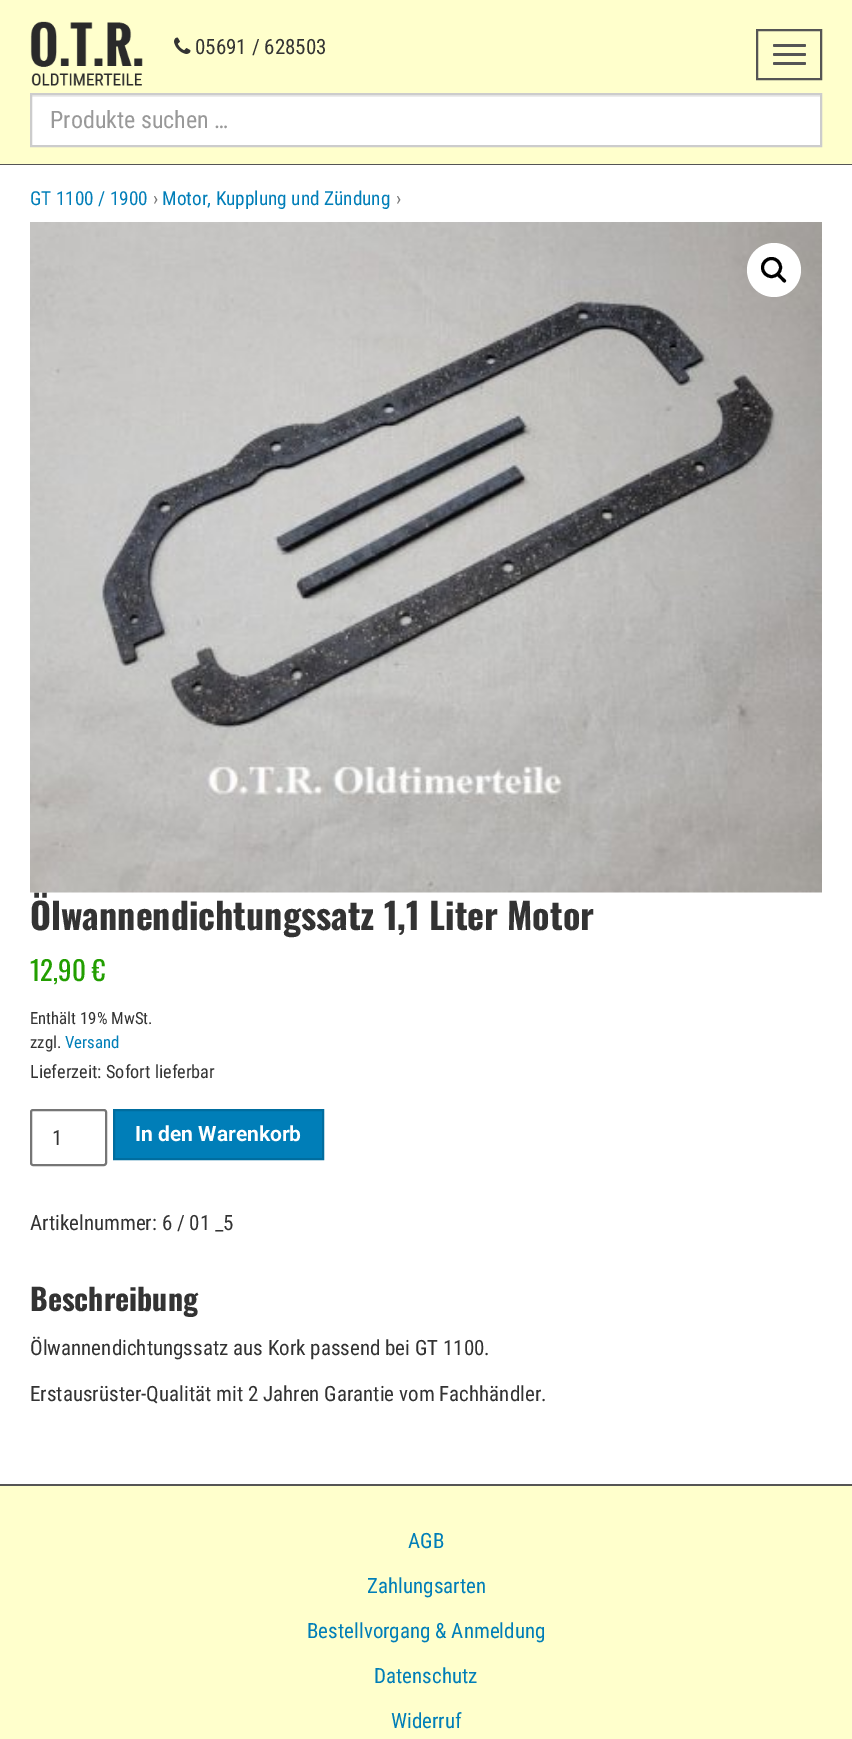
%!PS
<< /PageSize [852 1739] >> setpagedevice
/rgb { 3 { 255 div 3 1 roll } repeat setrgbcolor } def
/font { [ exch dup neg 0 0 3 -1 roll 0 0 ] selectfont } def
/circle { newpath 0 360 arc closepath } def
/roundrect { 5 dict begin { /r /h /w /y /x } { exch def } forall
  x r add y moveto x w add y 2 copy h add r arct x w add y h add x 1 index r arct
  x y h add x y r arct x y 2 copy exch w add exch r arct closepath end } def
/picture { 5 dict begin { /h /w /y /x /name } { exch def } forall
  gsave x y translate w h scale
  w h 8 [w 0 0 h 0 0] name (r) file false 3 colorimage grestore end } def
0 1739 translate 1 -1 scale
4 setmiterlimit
255 255 204 rgb
0 0 852 1739 rectfill
85 85 85 rgb
0 164 852 1 rectfill
(img/1.rgb) 30 21 113 65 picture
(img/2.rgb) 174 37 17 17 picture
2 setlinewidth
757 30 64 49 rectstroke
773 44 33 3 1.5 roundrect fill
773 53 33 3 1.5 roundrect fill
773 62 33 3 1.5 roundrect fill
255 255 255 rgb
32 97 788 48 rectfill
236 236 236 rgb
32 95 789 2 rectfill
204 204 204 rgb
31 94 790 52 rectstroke
255 255 255 rgb
0 165 852 1319 rectfill
85 85 85 rgb
0 1484 852 2 rectfill
118 118 118 rgb
31 1110 75 55 2 roundrect stroke
0 126 184 rgb
114 1110 moveto 323 1110 lineto 323 1159 lineto 114 1159 lineto closepath gsave fill grestore
0 109 159 rgb
stroke
/RobotoCondensed-Regular 21 font
51 51 51 rgb
195 54 moveto (05691 / 628503) show
/RobotoCondensed-Regular 24 font
153 153 153 rgb
50 128 moveto (Produkte suchen …) show
/RobotoCondensed-Regular 19.25 font
0 126 184 rgb
30 205 moveto (GT 1100 / 1900) show
118 118 118 rgb
153 205 moveto (›) show
0 126 184 rgb
162 205 moveto (Motor, Kupplung und Zündung) show
118 118 118 rgb
396 205 moveto (›) show
/Oswald-Bold 36 font
51 51 51 rgb
30 930 moveto (Ölwannendichtungssatz 1,1 Liter Motor) show
(img/3.rgb) 30 222 792 671 picture
255 255 255 rgb
774 270 27 circle fill
0 0 0 rgb
3 setlinewidth
771.5 267.5 9 circle stroke
777.5 273.5 moveto 779 272 781.5 276 782.5 277 curveto 783.5 278 787.5 280.5 785.5 282 curveto 784 284 781.5 280 780.5 279 curveto 779.5 278 775.5 275.5 777.5 273.5 curveto closepath fill
/Oswald-Regular 27 font
34 158 0 rgb
30 981 moveto (12,90 €) show
/RobotoCondensed-Regular 16.75 font
51 51 51 rgb
30 1024 moveto (Enthält 19% MwSt.) show
30 1048 moveto (zzgl.) show
0 126 184 rgb
65 1048 moveto (Versand) show
/RobotoCondensed-Regular 18.25 font
51 51 51 rgb
30 1078 moveto (Lieferzeit: Sofort lieferbar) show
/RobotoCondensed-Regular 21 font
52 1145 moveto (1) show
/Roboto-Bold 21 font
255 255 255 rgb
135 1141 moveto (In den Warenkorb) show
/RobotoCondensed-Regular 21 font
51 51 51 rgb
30 1230 moveto (Artikelnummer: 6 / 01 _5) show
/Oswald-Bold 30 font
30 1311 moveto (Beschreibung) show
/RobotoCondensed-Regular 21 font
30 1355 moveto (Ölwannendichtungssatz aus Kork passend bei GT 1100.) show
30 1401 moveto (Erstausrüster-Qualität mit 2 Jahren Garantie vom Fachhändler.) show
0 126 184 rgb
[
  [(AGB) 408 1548]
  [(Zahlungsarten) 367 1593]
  [(Bestellvorgang & Anmeldung) 307 1638]
  [(Datenschutz) 374 1683]
  [(Widerruf) 391 1728]
] { aload pop moveto show } forall
showpage
